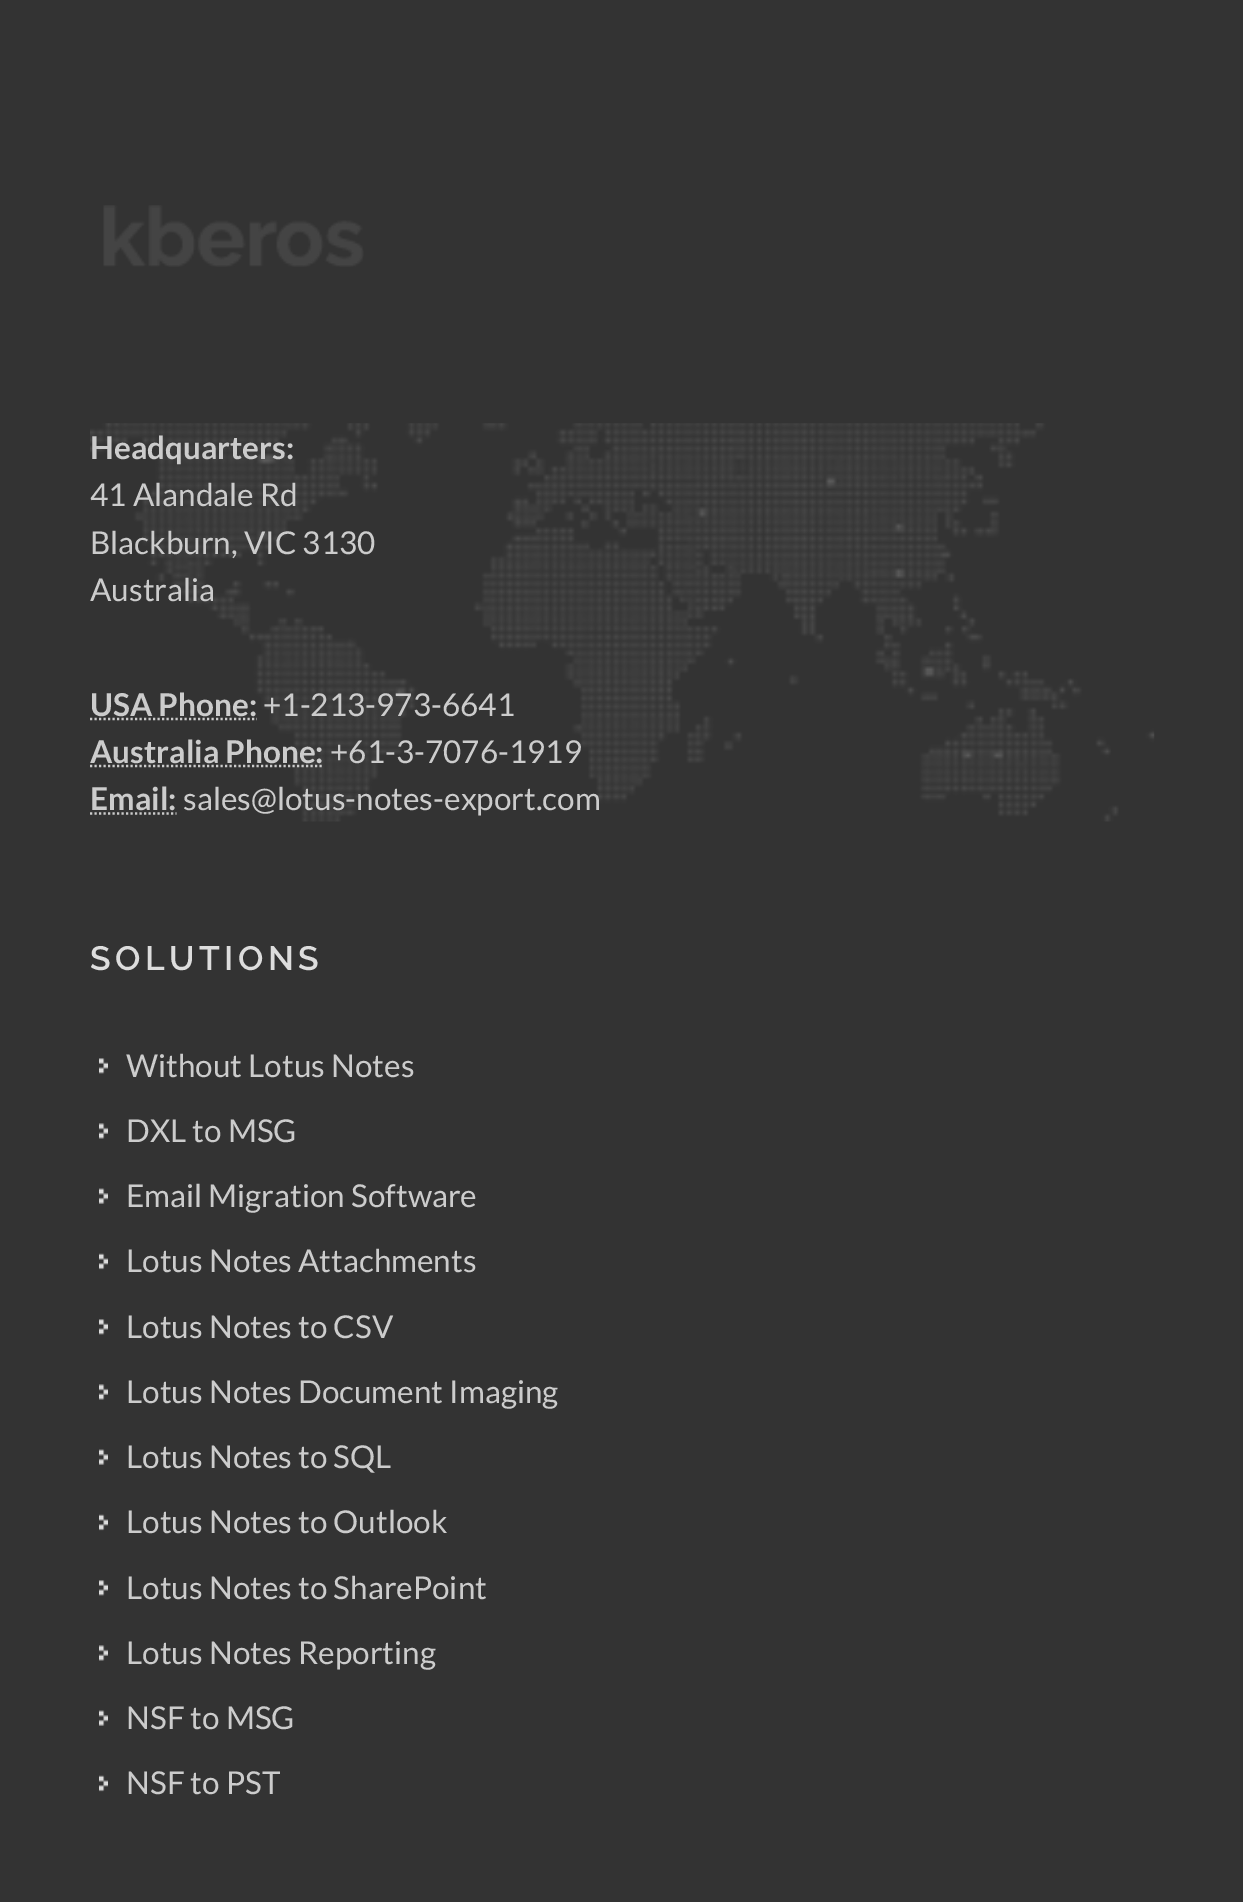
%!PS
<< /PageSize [1243 1902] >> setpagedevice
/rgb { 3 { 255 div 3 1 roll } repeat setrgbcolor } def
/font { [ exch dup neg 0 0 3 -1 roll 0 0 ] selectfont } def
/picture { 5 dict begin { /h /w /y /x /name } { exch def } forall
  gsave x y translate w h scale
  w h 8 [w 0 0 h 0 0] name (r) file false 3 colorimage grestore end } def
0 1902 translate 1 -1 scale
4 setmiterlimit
51 51 51 rgb
0 0 1243 1902 rectfill
(img/1.rgb) 103 205 261 62 picture
(img/2.rgb) 90 423 1065 399 picture
204 204 204 rgb
2.2 setlinewidth
[2.25 2.25] 0 setdash
90 719 moveto 257 719 lineto stroke
90 766 moveto 324 766 lineto stroke
90 813.5 moveto 176.5 813.5 lineto stroke
(img/3.rgb) 99 1058 9 16 picture
(img/4.rgb) 99 1123 9 16 picture
(img/5.rgb) 99 1188 9 16 picture
(img/6.rgb) 99 1253 9 17 picture
(img/3.rgb) 99 1319 9 16 picture
(img/4.rgb) 99 1384 9 16 picture
(img/5.rgb) 99 1449 9 16 picture
(img/6.rgb) 99 1514 9 17 picture
(img/3.rgb) 99 1580 9 16 picture
(img/4.rgb) 99 1645 9 16 picture
(img/5.rgb) 99 1710 9 16 picture
(img/6.rgb) 99 1775 9 17 picture
/Lato-Bold 31.5 font
90 459 moveto (Headquarters:) show
/Lato-Regular 31.5 font
[
  [(41 Alandale Rd) 90 506]
  [(Blackburn, VIC 3130) 90 554]
  [(Australia) 90 601]
] { aload pop moveto show } forall
/Lato-Bold 31.5 font
90 716 moveto (USA Phone:) show
/Lato-Regular 31.5 font
263 716 moveto (+1-213-973-6641) show
/Lato-Bold 31.5 font
90 763 moveto (Australia Phone:) show
/Lato-Regular 31.5 font
330 763 moveto (+61-3-7076-1919) show
/Lato-Bold 31.5 font
90 810 moveto (Email:) show
/Lato-Regular 31.5 font
183 810 moveto (sales@lotus-notes-export.com) show
/Raleway-SemiBold 33.75 font
221 221 221 rgb
90 970 moveto 4.5 0 (SOLUTIONS) ashow
/Lato-Regular 31.5 font
204 204 204 rgb
[
  [(Without Lotus Notes) 126 1077]
  [(DXL to MSG) 126 1142]
  [(Email Migration Software) 126 1207]
  [(Lotus Notes Attachments) 126 1272]
  [(Lotus Notes to CSV) 126 1338]
  [(Lotus Notes Document Imaging) 126 1403]
  [(Lotus Notes to SQL) 126 1468]
  [(Lotus Notes to Outlook) 126 1533]
  [(Lotus Notes to SharePoint) 126 1599]
  [(Lotus Notes Reporting) 126 1664]
  [(NSF to MSG) 126 1729]
  [(NSF to PST) 126 1794]
] { aload pop moveto show } forall
showpage
